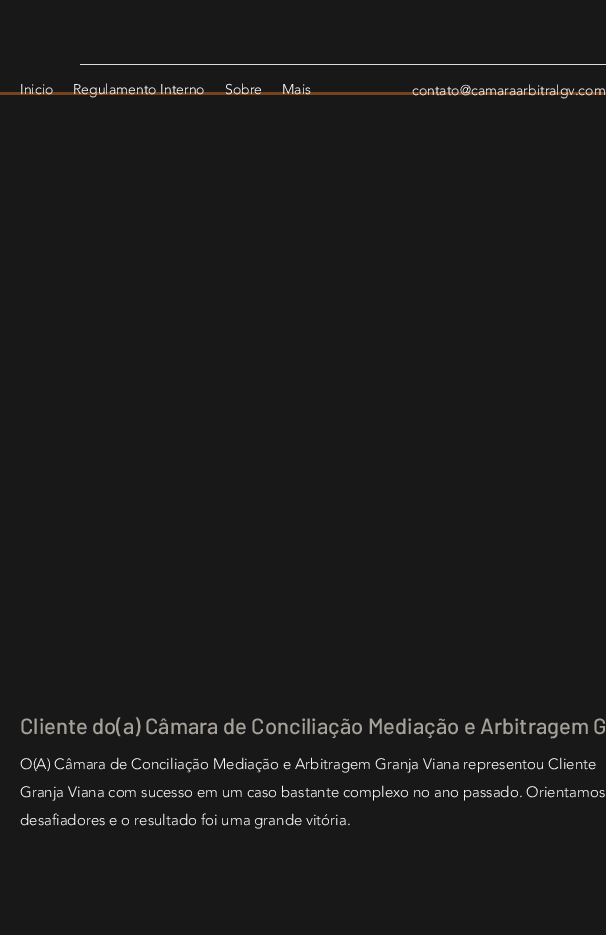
%!PS
<< /PageSize [606 935] >> setpagedevice
/rgb { 3 { 255 div 3 1 roll } repeat setrgbcolor } def
/font { [ exch dup neg 0 0 3 -1 roll 0 0 ] selectfont } def
/picture { 5 dict begin { /h /w /y /x /name } { exch def } forall
  gsave x y translate w h scale
  w h 8 [w 0 0 h 0 0] name (r) file false 3 colorimage grestore end } def
0 935 translate 1 -1 scale
4 setmiterlimit
24 24 24 rgb
0 0 606 935 rectfill
(img/1.rgb) 34 0 3 1 picture
220 220 220 rgb
80 64 526 1 rectfill
116 66 29 rgb
0 92 606 3 rectfill
/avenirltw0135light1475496-Light 14 font
255 255 255 rgb
[
  [(Inicio) 20 94]
  [(Regulamento Interno) 73 94]
  [(Sobre) 225 94]
  [(Mais) 282 94]
  [(contato@camaraarbitralgv.com) 412 95]
] { aload pop moveto show } forall
/Barlow-Medium 22 font
165 160 152 rgb
20 734 moveto (Cliente do\(a\) Câmara de Conciliação Mediação e Arbitragem G) show
/avenirltw0135light1475496-Light 15 font
255 255 255 rgb
[
  [(O\(A\) Câmara de Conciliação Mediação e Arbitragem Granja Viana representou Cliente) 20 769]
  [(Granja Viana com sucesso em um caso bastante complexo no ano passado. Orientamos) 20 797]
  [(desafiadores e o resultado foi uma grande vitória.) 20 825]
] { aload pop moveto show } forall
showpage
